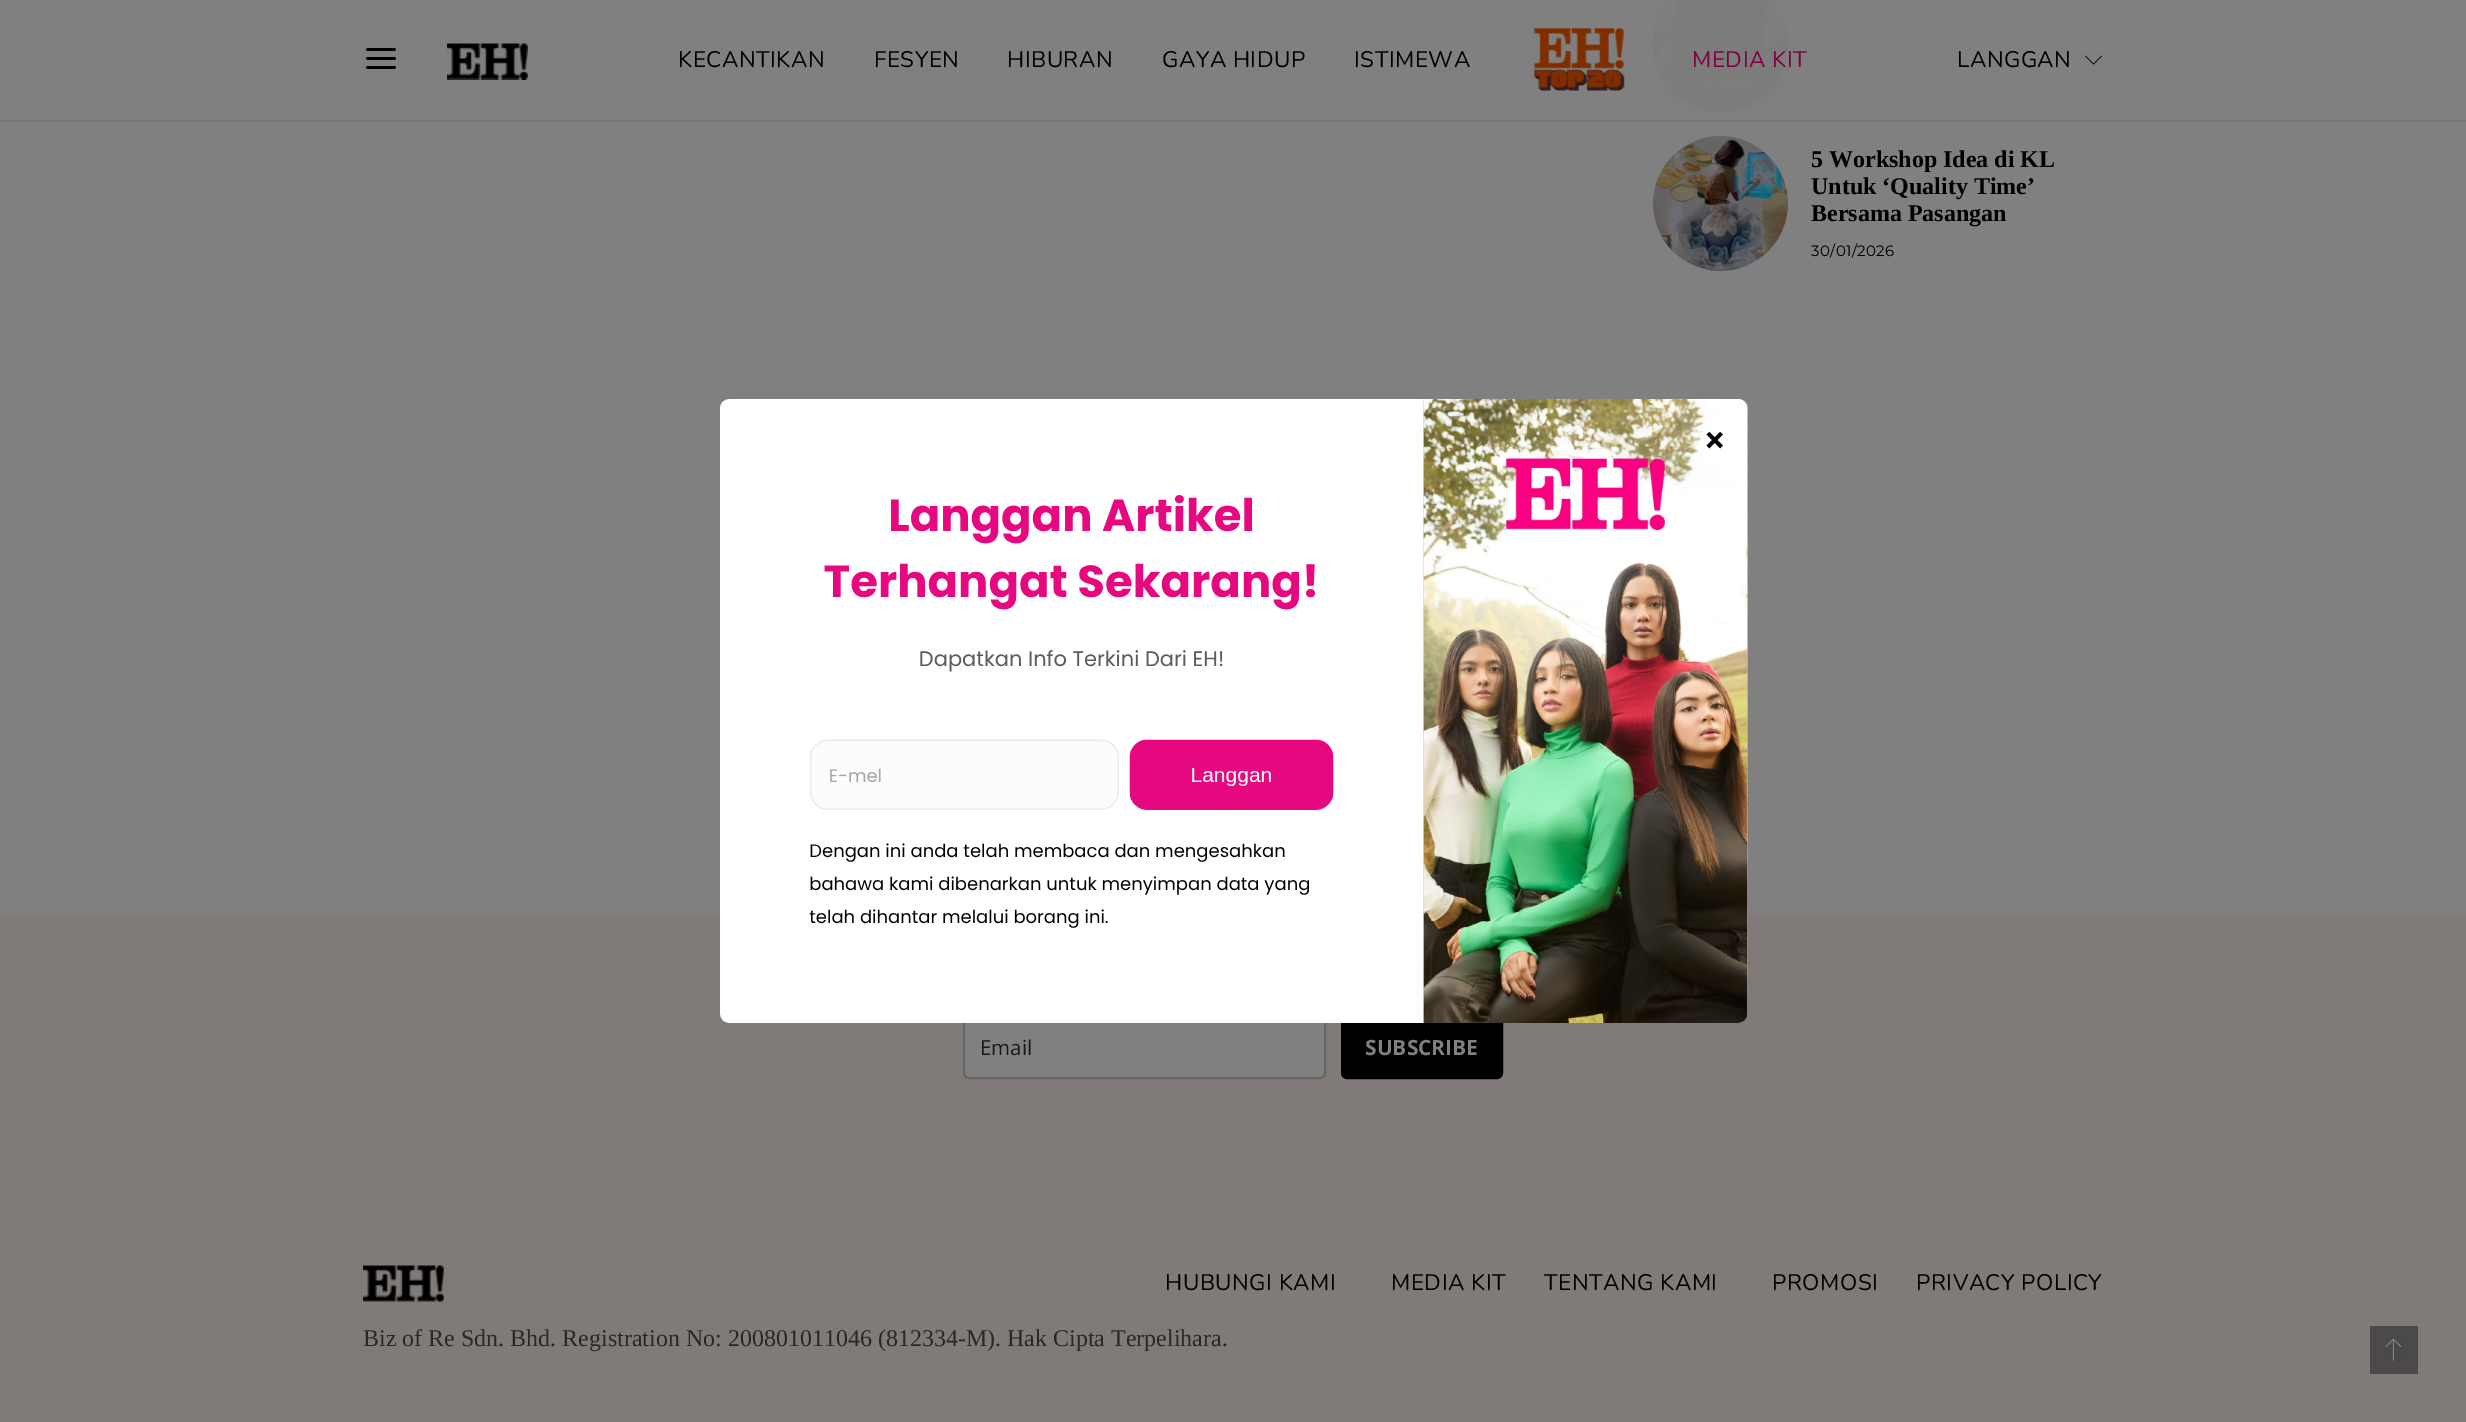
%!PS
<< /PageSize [2466 1422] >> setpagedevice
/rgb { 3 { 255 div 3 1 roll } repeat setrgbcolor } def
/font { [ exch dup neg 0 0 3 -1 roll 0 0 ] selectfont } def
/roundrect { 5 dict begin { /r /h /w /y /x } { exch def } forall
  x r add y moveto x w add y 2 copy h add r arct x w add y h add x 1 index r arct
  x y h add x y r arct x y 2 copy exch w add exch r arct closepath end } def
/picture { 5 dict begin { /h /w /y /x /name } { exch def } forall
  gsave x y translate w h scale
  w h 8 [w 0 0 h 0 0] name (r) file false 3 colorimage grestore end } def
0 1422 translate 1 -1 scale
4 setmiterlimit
128 128 128 rgb
0 0 2466 1422 rectfill
119 119 119 rgb
0 120 2466 2 rectfill
(img/1.rgb) 366 48 30 21 picture
(img/2.rgb) 447 43 81 37 picture
(img/3.rgb) 1533 28 92 63 picture
(img/4.rgb) 2085 55 17 10 picture
(img/5.rgb) 1653 0 135 112 picture
(img/6.rgb) 1653 136 135 135 picture
128 123 121 rgb
0 914 2466 508 rectfill
128 128 128 rgb
964 1017 361 61 5 roundrect gsave fill grestore
102 102 102 rgb
2 setlinewidth
stroke
0 0 0 rgb
1342 1017 160 61 5 roundrect gsave fill grestore
stroke
(img/7.rgb) 363 1265 81 37 picture
(img/8.rgb) 720 399 1028 624 picture
75 73 73 rgb
2370 1326 48 48 rectfill
(img/9.rgb) 2385 1338 17 23 picture
/Nunito-Regular 22.5 font
0 0 0 rgb
678 67 moveto 0.5 0 (KECANTIKAN) ashow
874 67 moveto 0.5 0 (FESYEN) ashow
1007 67 moveto 0.5 0 (HIBURAN) ashow
1162 67 moveto 0.5 0 (GAYA HIDUP) ashow
1354 67 moveto 0.5 0 (ISTIMEWA) ashow
128 0 65 rgb
1692 67 moveto 0.5 0 (MEDIA KIT) ashow
0 0 0 rgb
1957 67 moveto 0.5 0 (LANGGAN) ashow
/LiberationSerif-Bold 24 font
[
  [(5 Workshop Idea di KL) 1811 167]
  [(Untuk ‘Quality Time’) 1811 194]
  [(Bersama Pasangan) 1811 221]
] { aload pop moveto show } forall
/Montserrat-Regular 15 font
1811 256 moveto 0.4 0 (30/01/2026) ashow
/OpenSans-Regular 20.5 font
26 26 26 rgb
980 1055 moveto (Email) show
/OpenSans-Bold 21 font
128 128 128 rgb
1365 1055 moveto (SUBSCRIBE) show
/Nunito-Regular 22.5 font
0 0 0 rgb
1165 1290 moveto 0.5 0 (HUBUNGI KAMI) ashow
1391 1290 moveto 0.5 0 (MEDIA KIT) ashow
1544 1290 moveto 0.5 0 (TENTANG KAMI) ashow
1772 1290 moveto 0.5 0 (PROMOSI) ashow
1916 1290 moveto 0.5 0 (PRIVACY POLICY) ashow
/LiberationSerif-Regular 24 font
40 40 40 rgb
363 1346 moveto (Biz of Re Sdn. Bhd. Registration No: 200801011046 \(812334-M\). Hak Cipta Terpelihara.) show
showpage
